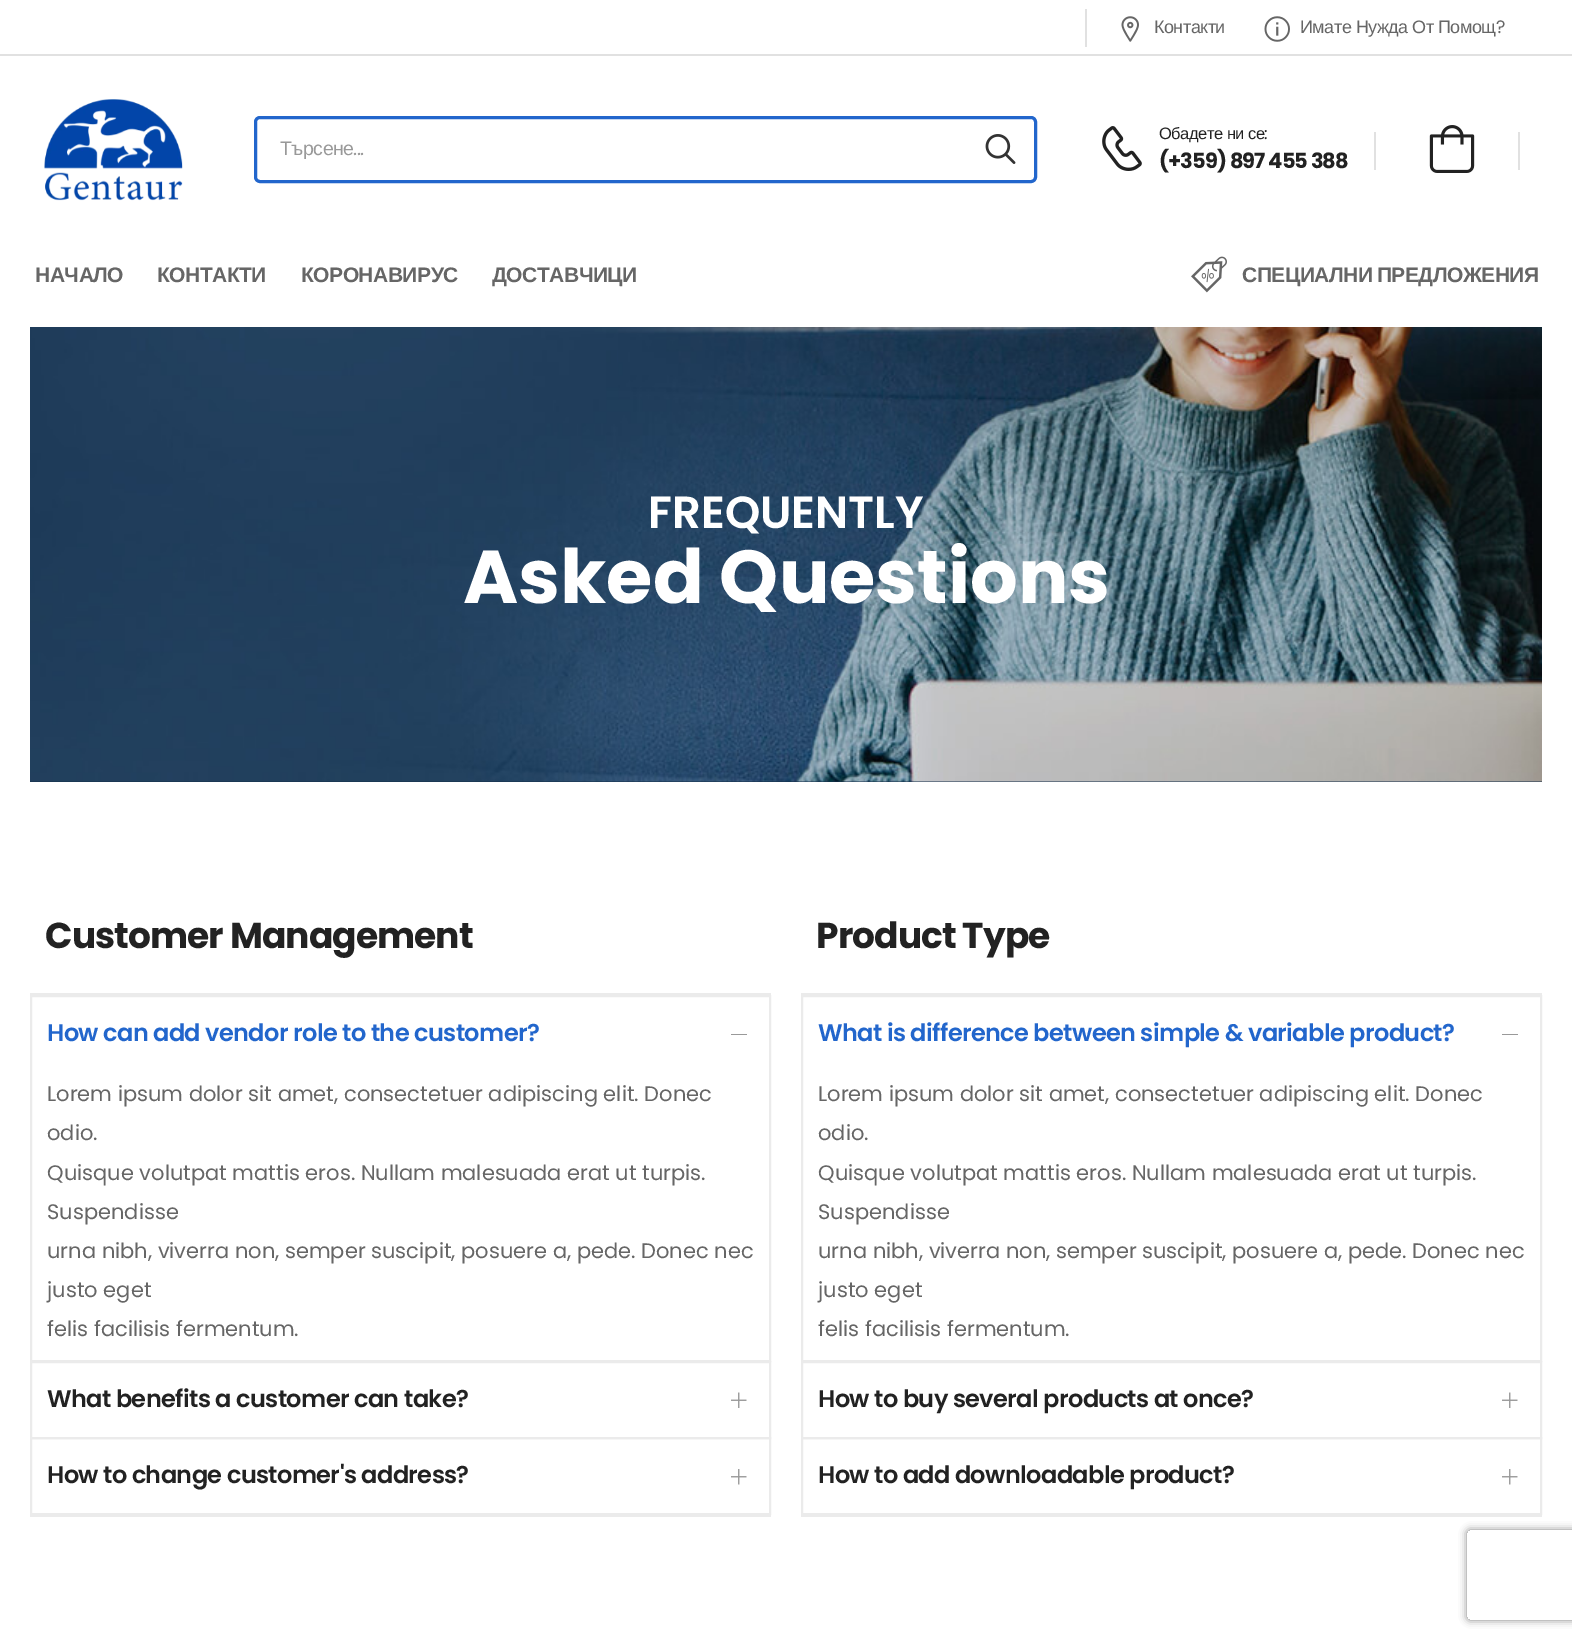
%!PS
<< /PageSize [1572 1641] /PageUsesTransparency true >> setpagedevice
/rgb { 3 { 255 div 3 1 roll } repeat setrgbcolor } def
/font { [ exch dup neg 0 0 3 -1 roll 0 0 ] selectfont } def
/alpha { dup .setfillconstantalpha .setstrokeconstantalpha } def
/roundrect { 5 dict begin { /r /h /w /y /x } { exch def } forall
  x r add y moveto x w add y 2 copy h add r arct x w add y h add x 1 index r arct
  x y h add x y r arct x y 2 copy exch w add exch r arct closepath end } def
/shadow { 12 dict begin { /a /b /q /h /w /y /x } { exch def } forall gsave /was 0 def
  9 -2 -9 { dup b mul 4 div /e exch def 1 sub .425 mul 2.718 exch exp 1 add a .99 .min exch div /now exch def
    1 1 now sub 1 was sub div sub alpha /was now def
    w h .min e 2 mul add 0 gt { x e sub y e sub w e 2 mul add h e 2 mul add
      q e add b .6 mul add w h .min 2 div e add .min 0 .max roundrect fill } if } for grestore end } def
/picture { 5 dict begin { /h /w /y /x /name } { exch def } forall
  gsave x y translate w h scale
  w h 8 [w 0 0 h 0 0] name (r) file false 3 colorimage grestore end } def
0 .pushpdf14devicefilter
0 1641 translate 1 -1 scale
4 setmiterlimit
255 255 255 rgb
0 0 1572 1641 rectfill
225 225 225 rgb
0 54 1572 2 rectfill
1085 9 2 38 rectfill
(img/1.rgb) 1121 16 18 26 picture
(img/2.rgb) 1264 16 26 26 picture
(img/3.rgb) 44 99 139 102 picture
34 102 204 rgb
3 setlinewidth
255.5 117.5 780 64 4.5 roundrect stroke
(img/4.rgb) 985 134 31 30 picture
(img/5.rgb) 1102 126 40 45 picture
225 225 225 rgb
1374 132 2 38 rectfill
(img/6.rgb) 1429 125 46 48 picture
1518 132 2 38 rectfill
(img/7.rgb) 1191 256 36 37 picture
20 47 74 rgb
30 781 1512 1 rectfill
(img/8.rgb) 30 327 1512 455 picture
235 235 235 rgb
30 993 741 2 rectfill
30 1515 741 2 rectfill
2 setlinewidth
31 996 739 365 rectstroke
153 153 153 rgb
731 1034 16 1 rectfill
235 235 235 rgb
31 1362 739 76 rectstroke
(img/9.rgb) 731 1392 16 16 picture
31 1438 739 76 rectstroke
(img/10.rgb) 731 1469 16 16 picture
801 993 741 2 rectfill
801 1515 741 2 rectfill
802 996 739 365 rectstroke
153 153 153 rgb
1502 1034 16 1 rectfill
235 235 235 rgb
802 1362 739 76 rectstroke
(img/9.rgb) 1502 1392 16 16 picture
802 1438 739 76 rectstroke
(img/10.rgb) 1502 1469 16 16 picture
gsave
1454 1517 moveto 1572 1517 lineto 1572 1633 lineto 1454 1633 lineto closepath 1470 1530 moveto 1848 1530 lineto 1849.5 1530 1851 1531.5 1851 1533 curveto 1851 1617 lineto 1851 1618.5 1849.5 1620 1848 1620 curveto 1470 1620 lineto 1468.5 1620 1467 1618.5 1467 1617 curveto 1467 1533 lineto 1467 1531.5 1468.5 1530 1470 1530 curveto closepath eoclip newpath
128 128 128 rgb
1467 1530 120 90 3 4 1 shadow
grestore
/LiberationSans-Regular 18 font
102 102 102 rgb
1154 33 moveto -0.5 0 (Контакти) ashow
1300 33 moveto -0.5 0 (Имате Нужда От Помощ) ashow
/Poppins-Regular 18 font
1496 33 moveto -0.5 0 (?) ashow
/LiberationSans-Regular 19.5 font
153 153 153 rgb
280 155 moveto -0.5 0 (Търсене) ashow
/Poppins-Regular 19.5 font
353 155 moveto -0.5 0 (...) ashow
/LiberationSans-Regular 16.5 font
34 34 34 rgb
1159 139 moveto -0.5 0 (Обадете ни се) ashow
/Poppins-Regular 16.5 font
1264 139 moveto -0.5 0 (:) ashow
/Poppins-Bold 21 font
1159 168 moveto -0.9 0 (\(+359\) 897 455 388) ashow
/LiberationSans-Bold 21 font
102 102 102 rgb
35 282 moveto -0.5 0 (НАЧАЛО) ashow
157 282 moveto -0.5 0 (КОНТАКТИ) ashow
301 282 moveto -0.5 0 (КОРОНАВИРУС) ashow
492 282 moveto -0.5 0 (ДОСТАВЧИЦИ) ashow
1242 282 moveto -1 0 32 -0.5 0 (СПЕЦИАЛНИ ПРЕДЛОЖЕНИЯ) awidthshow
/Poppins-SemiBold 45 font
255 255 255 rgb
648 528 moveto (FREQUENTLY) show
/Poppins-Bold 75 font
463 603 moveto (Asked Questions) show
/Poppins-Bold 36 font
34 34 34 rgb
45 948 moveto -0.9 0 (Customer Management) ashow
/Poppins-SemiBold 24 font
34 102 204 rgb
47 1041 moveto -0.6 0 (How can add vendor role to the customer?) ashow
/Poppins-Regular 21 font
102 102 102 rgb
[
  [(Lorem ipsum dolor sit amet, consectetuer adipiscing elit. Donec) 47 1101]
  [(odio.) 47 1140]
  [(Quisque volutpat mattis eros. Nullam malesuada erat ut turpis.) 47 1180]
  [(Suspendisse) 47 1219]
  [(urna nibh, viverra non, semper suscipit, posuere a, pede. Donec nec) 47 1258]
  [(justo eget) 47 1297]
  [(felis facilisis fermentum.) 47 1336]
] { aload pop moveto show } forall
/Poppins-SemiBold 24 font
34 34 34 rgb
47 1407 moveto -0.6 0 (What benefits a customer can take?) ashow
47 1483 moveto -0.6 0 (How to change customer's address?) ashow
/Poppins-Bold 36 font
816 948 moveto -0.9 0 (Product Type) ashow
/Poppins-SemiBold 24 font
34 102 204 rgb
818 1041 moveto -0.6 0 (What is difference between simple & variable product?) ashow
/Poppins-Regular 21 font
102 102 102 rgb
[
  [(Lorem ipsum dolor sit amet, consectetuer adipiscing elit. Donec) 818 1101]
  [(odio.) 818 1140]
  [(Quisque volutpat mattis eros. Nullam malesuada erat ut turpis.) 818 1180]
  [(Suspendisse) 818 1219]
  [(urna nibh, viverra non, semper suscipit, posuere a, pede. Donec nec) 818 1258]
  [(justo eget) 818 1297]
  [(felis facilisis fermentum.) 818 1336]
] { aload pop moveto show } forall
/Poppins-SemiBold 24 font
34 34 34 rgb
818 1407 moveto -0.6 0 (How to buy several products at once?) ashow
818 1483 moveto -0.6 0 (How to add downloadable product?) ashow
.poppdf14devicefilter showpage
